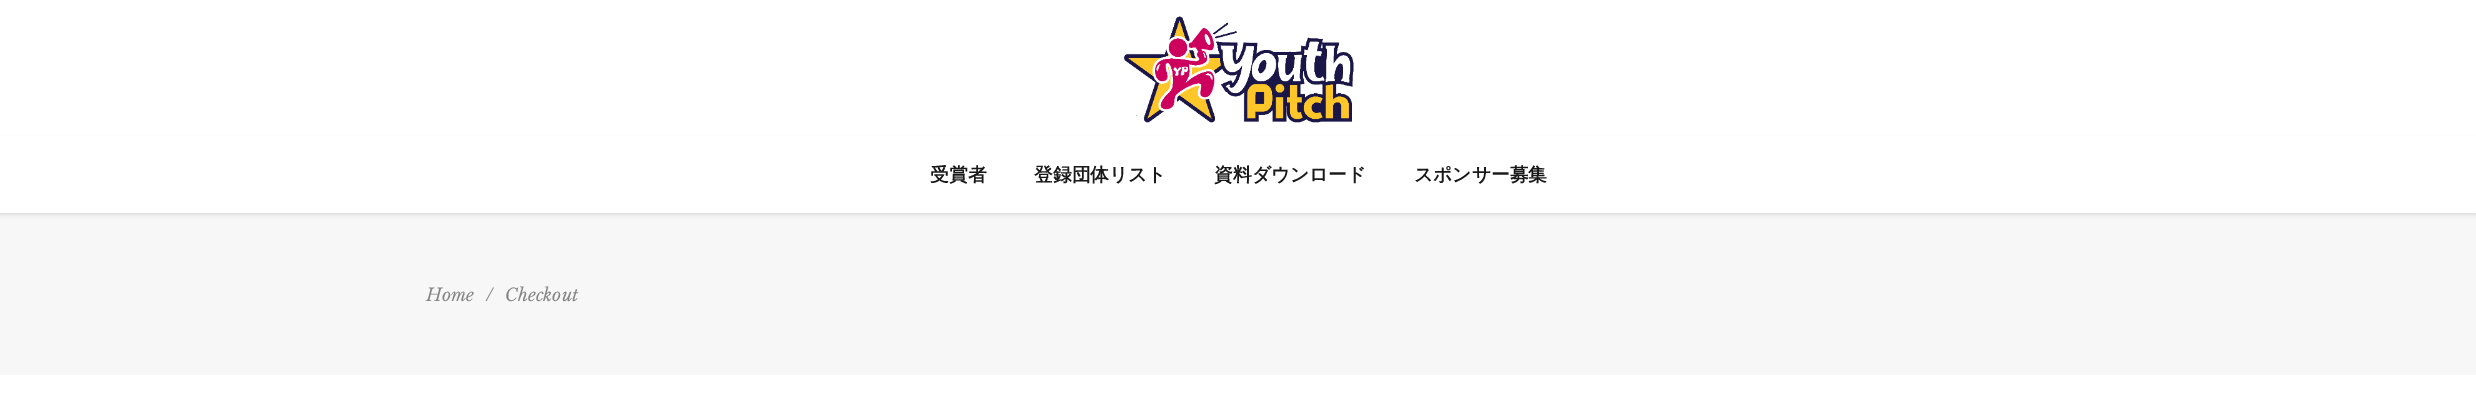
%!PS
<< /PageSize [2476 406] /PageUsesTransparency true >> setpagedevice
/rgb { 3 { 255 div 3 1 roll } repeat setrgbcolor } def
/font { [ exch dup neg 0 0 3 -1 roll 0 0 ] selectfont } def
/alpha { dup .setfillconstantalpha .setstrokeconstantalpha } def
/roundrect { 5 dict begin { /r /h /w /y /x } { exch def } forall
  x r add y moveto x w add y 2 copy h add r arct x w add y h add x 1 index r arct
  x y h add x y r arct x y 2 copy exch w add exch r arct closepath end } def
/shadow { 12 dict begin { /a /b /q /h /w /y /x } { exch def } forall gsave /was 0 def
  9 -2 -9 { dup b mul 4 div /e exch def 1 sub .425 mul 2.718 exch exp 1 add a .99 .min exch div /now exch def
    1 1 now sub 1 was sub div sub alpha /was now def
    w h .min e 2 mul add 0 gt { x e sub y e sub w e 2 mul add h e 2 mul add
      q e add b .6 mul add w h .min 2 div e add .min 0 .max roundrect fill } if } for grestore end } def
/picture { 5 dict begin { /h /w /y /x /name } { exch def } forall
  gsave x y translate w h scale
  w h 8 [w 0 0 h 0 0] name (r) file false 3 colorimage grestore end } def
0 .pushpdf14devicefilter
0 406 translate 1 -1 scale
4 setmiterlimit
255 255 255 rgb
0 0 2476 406 rectfill
(img/1.rgb) 1123 16 231 107 picture
247 247 247 rgb
0 213 2476 162 rectfill
0 0 0 rgb
0 139 2476 75 0 2 0.15 shadow
255 255 255 rgb
0 136 2476 77 rectfill
/WenQuanYiZenHei-Bold 18.75 font
25 25 25 rgb
[
  [(受賞者) 930 181]
  [(登録団体リスト) 1034 181]
  [(資料ダウンロード) 1214 181]
  [(スポンサー募集) 1414 181]
] { aload pop moveto show } forall
/LibreBaskerville-Italic 17.5 font
134 134 134 rgb
[
  [(Home) 426 301]
  [(/) 486 301]
  [(Checkout) 505 301]
] { aload pop moveto show } forall
.poppdf14devicefilter showpage
